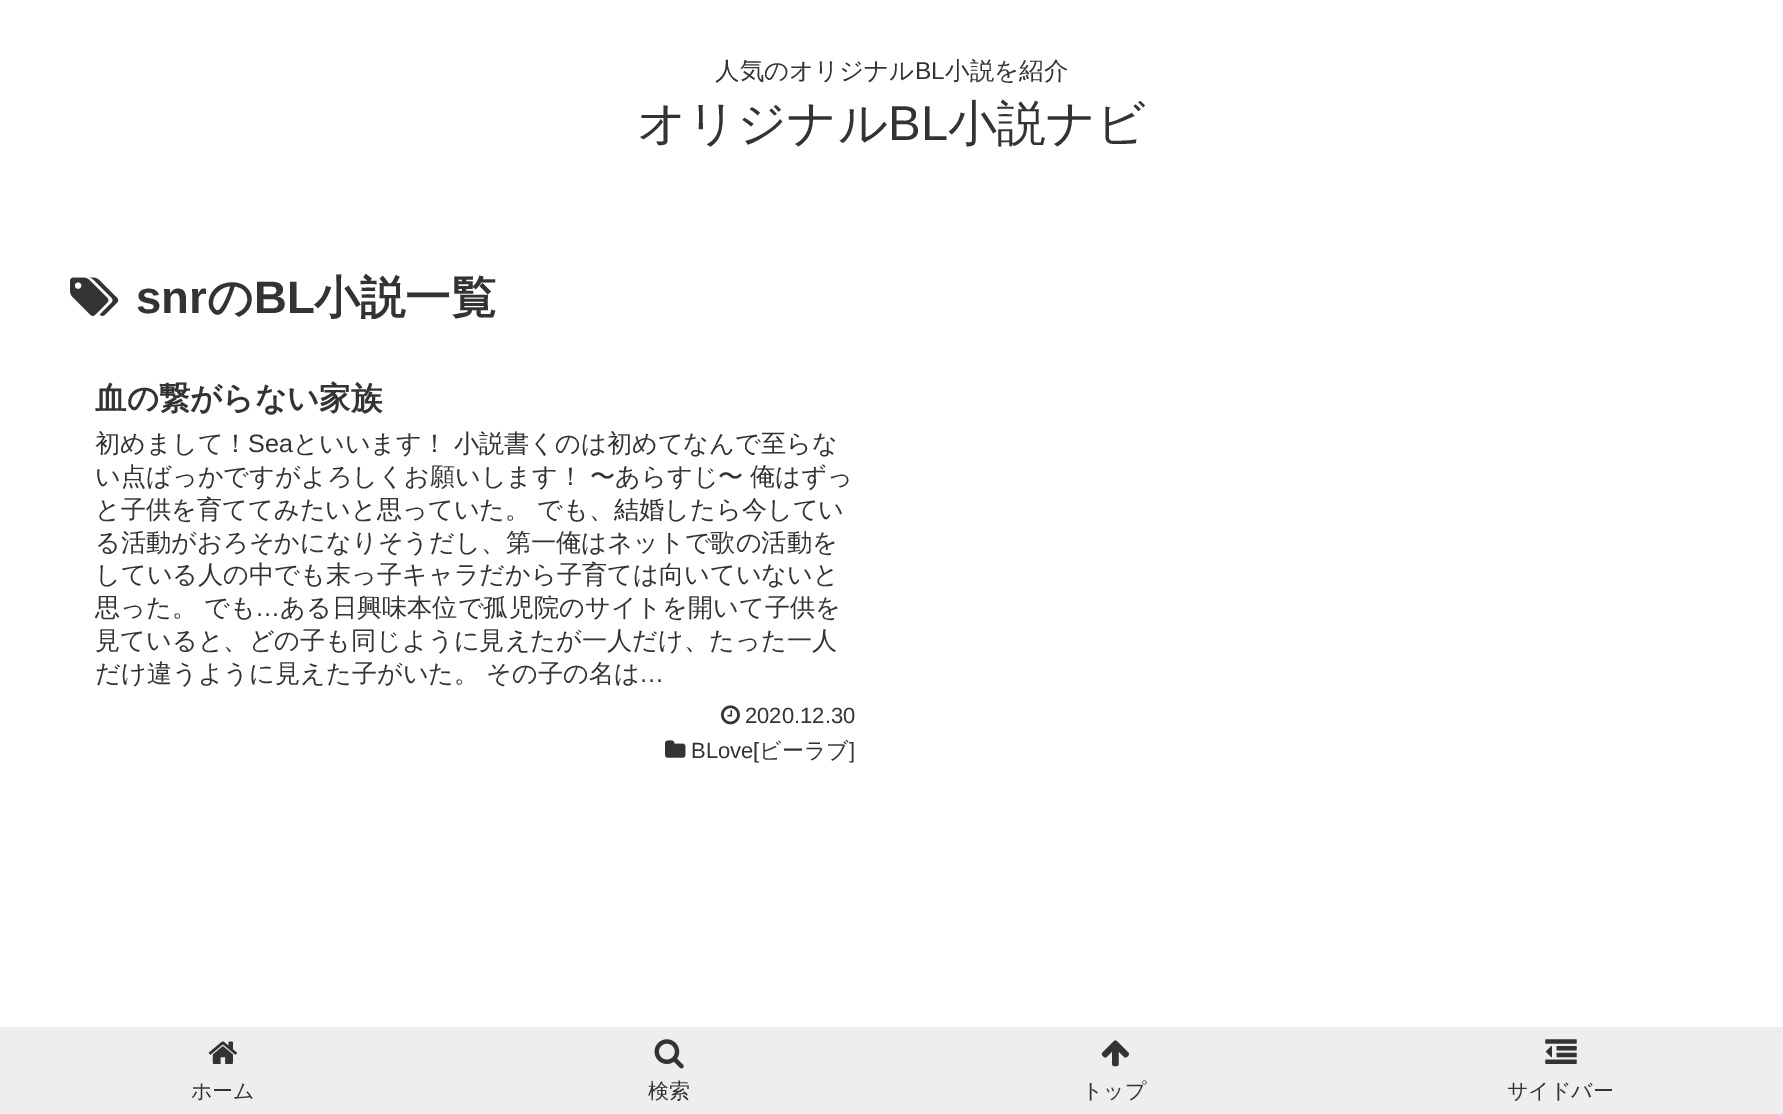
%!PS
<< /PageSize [1783 1114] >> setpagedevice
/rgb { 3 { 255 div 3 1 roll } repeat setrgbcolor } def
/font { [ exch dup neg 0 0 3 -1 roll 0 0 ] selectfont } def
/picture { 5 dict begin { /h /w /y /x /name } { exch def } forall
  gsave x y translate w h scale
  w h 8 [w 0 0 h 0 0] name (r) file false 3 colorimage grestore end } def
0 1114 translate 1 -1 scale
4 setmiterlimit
255 255 255 rgb
0 0 1783 1114 rectfill
(img/1.rgb) 70 277 49 39 picture
(img/2.rgb) 721 705 19 20 picture
(img/3.rgb) 665 740 21 18 picture
238 238 238 rgb
0 1027 1783 87 rectfill
(img/4.rgb) 208 1041 29 23 picture
(img/5.rgb) 654 1039 30 30 picture
(img/6.rgb) 1101 1040 28 27 picture
(img/7.rgb) 1545 1039 32 25 picture
/WenQuanYiZenHei-Medium 24.5 font
51 51 51 rgb
715 79 moveto (人気のオリジナル) show
/LiberationSans-Regular 24.5 font
915 79 moveto (BL) show
/WenQuanYiZenHei-Medium 24.5 font
945 79 moveto (小説を紹介) show
/WenQuanYiZenHei-Medium 49 font
637 140 moveto (オリジナル) show
/LiberationSans-Regular 49 font
888 140 moveto (BL) show
/WenQuanYiZenHei-Medium 49 font
948 140 moveto (小説ナビ) show
/LiberationSans-Bold 45.5 font
136 313 moveto (snr) show
/WenQuanYiZenHei-Bold 45.5 font
207 313 moveto (の) show
/LiberationSans-Bold 45.5 font
254 313 moveto (BL) show
/WenQuanYiZenHei-Bold 45.5 font
314 313 moveto (小説一覧) show
/WenQuanYiZenHei-Bold 31.5 font
95 409 moveto (血の繋がらない家族) show
/WenQuanYiZenHei-Medium 25.2 font
95 452 moveto (初めまして！) show
/LiberationSans-Regular 25.2 font
248 452 moveto (Sea) show
/WenQuanYiZenHei-Medium 25.2 font
293 452 moveto -1 0 32 (といいます！ 小説書くのは初めてなんで至らな) widthshow
95 485 moveto (い点ばっかですがよろしくお願いします！) show
590 485 moveto -1 0 32 (〜あらすじ〜 俺はずっ) widthshow
[
  [(と子供を育ててみたいと思っていた。) 95 518]
  [(でも、結婚したら今してい) 537 518]
  [(る活動がおろそかになりそうだし、第一俺はネットで歌の活動を) 95 551]
  [(している人の中でも末っ子キャラだから子育ては向いていないと) 95 583]
  [(思った。) 95 616]
  [(でも) 204 616]
] { aload pop moveto show } forall
/LiberationSans-Regular 25.2 font
255 616 moveto (…) show
/WenQuanYiZenHei-Medium 25.2 font
[
  [(ある日興味本位で孤児院のサイトを開いて子供を) 280 616]
  [(見ていると、どの子も同じように見えたが一人だけ、たった一人) 95 649]
  [(だけ違うように見えた子がいた。) 95 682]
  [(その子の名は) 486 682]
] { aload pop moveto show } forall
/LiberationSans-Regular 25.2 font
639 682 moveto (…) show
/LiberationSans-Regular 22 font
745 723 moveto (2020.12.30) show
691 758 moveto (BLove[) show
/WenQuanYiZenHei-Medium 22 font
759 758 moveto (ビーラブ) show
/LiberationSans-Regular 22 font
849 758 moveto (]) show
/WenQuanYiZenHei-Medium 21 font
[
  [(ホーム) 191 1098]
  [(検索) 648 1098]
  [(トップ) 1082 1098]
  [(サイドバー) 1507 1098]
] { aload pop moveto show } forall
showpage
